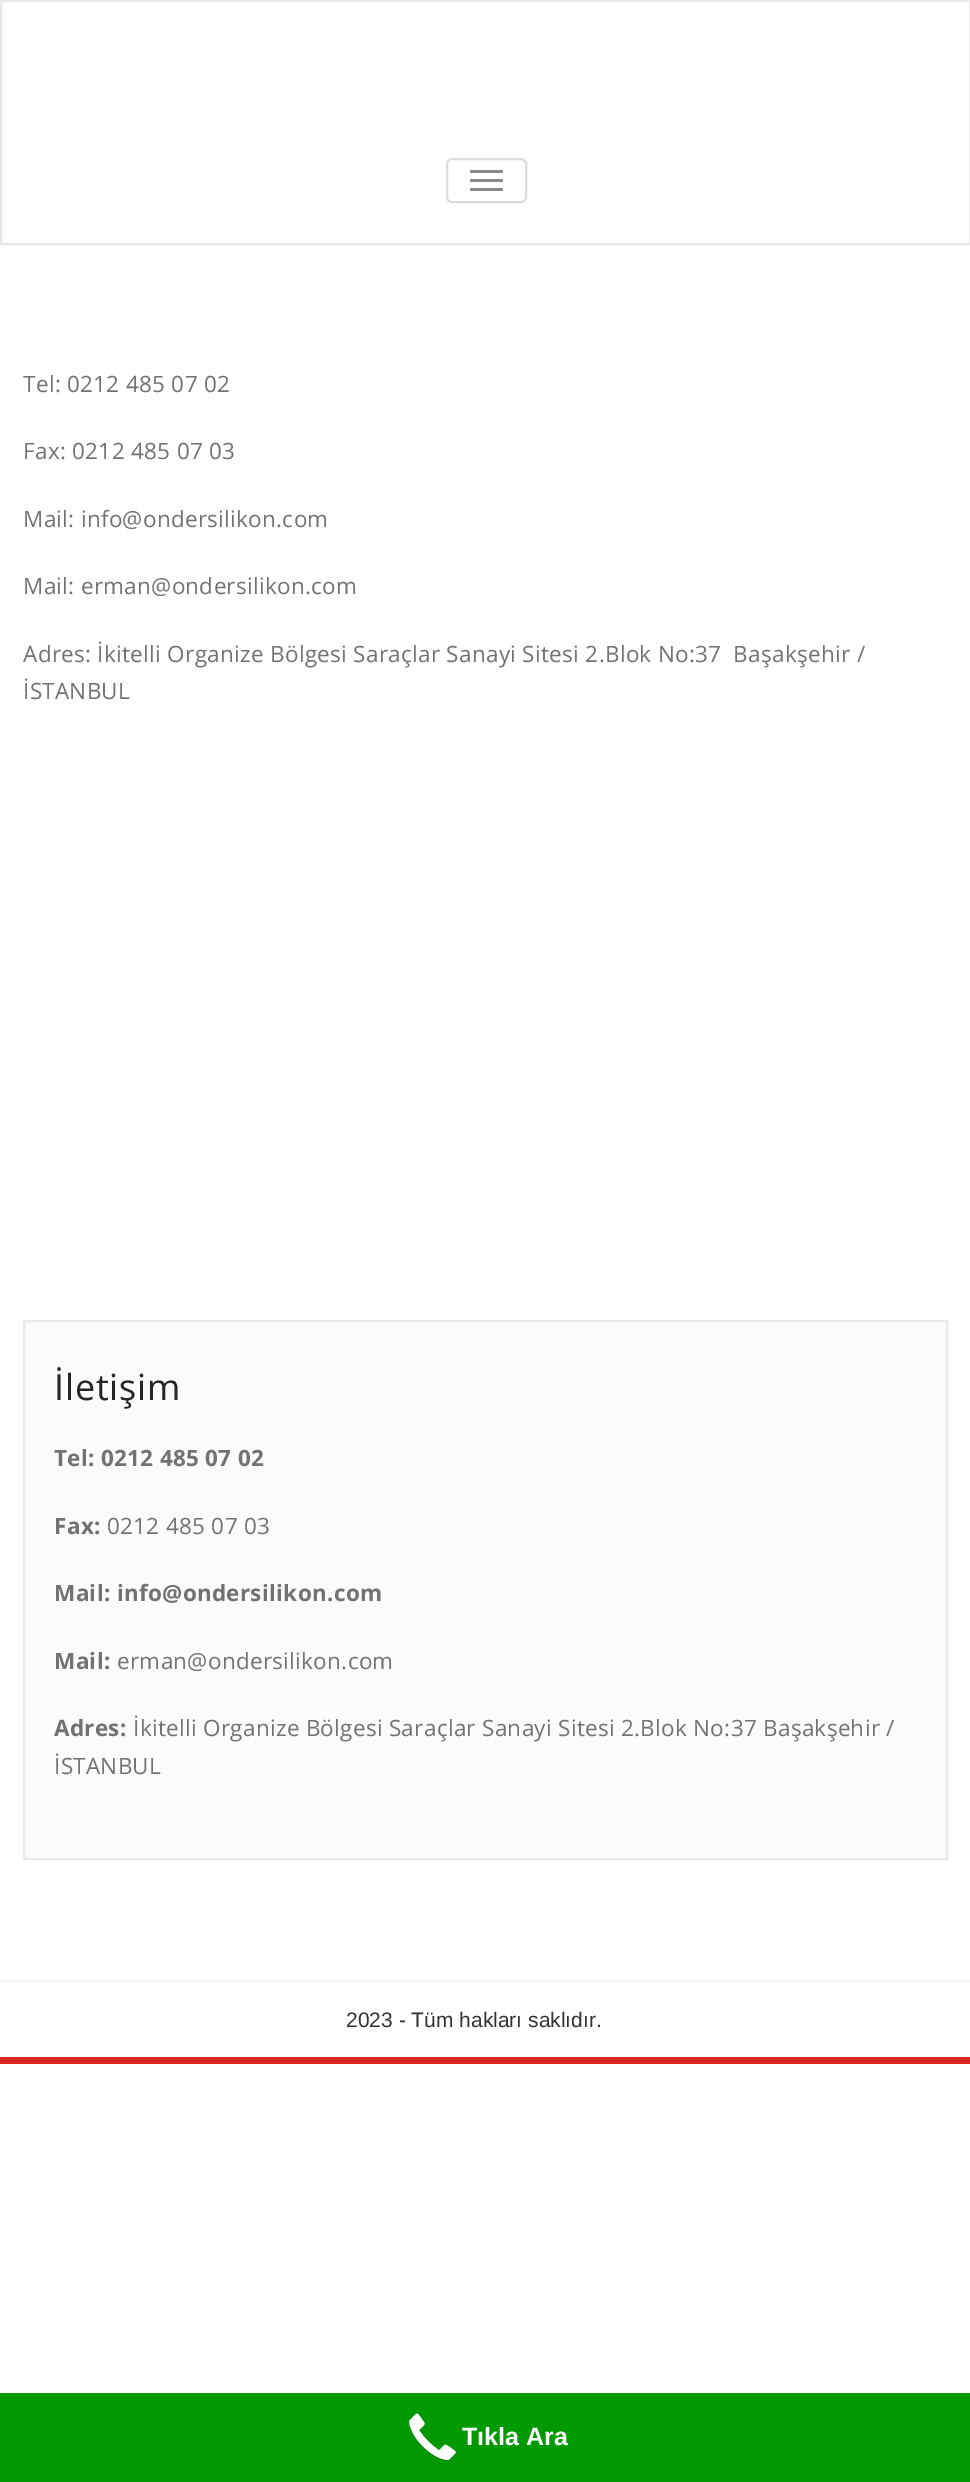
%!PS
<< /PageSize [970 2482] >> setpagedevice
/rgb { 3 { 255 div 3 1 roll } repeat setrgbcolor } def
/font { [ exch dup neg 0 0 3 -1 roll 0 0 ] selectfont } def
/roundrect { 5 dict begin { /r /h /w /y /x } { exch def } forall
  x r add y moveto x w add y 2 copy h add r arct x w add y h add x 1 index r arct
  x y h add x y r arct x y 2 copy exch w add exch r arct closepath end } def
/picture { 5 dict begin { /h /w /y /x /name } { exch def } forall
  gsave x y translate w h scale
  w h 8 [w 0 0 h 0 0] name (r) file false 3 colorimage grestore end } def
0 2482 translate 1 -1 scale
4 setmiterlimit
255 255 255 rgb
0 0 970 2482 rectfill
231 231 231 rgb
2 setlinewidth
1 1 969 243 rectstroke
221 221 221 rgb
447 159 79 43 5 roundrect stroke
136 136 136 rgb
470 170 33 3 1.5 roundrect fill
470 179 33 3 1.5 roundrect fill
470 188 33 3 1.5 roundrect fill
251 251 251 rgb
24 1321 moveto 947 1321 lineto 947 1859 lineto 24 1859 lineto closepath gsave fill grestore
233 233 233 rgb
stroke
[
  [0 1980 970 2 244 244 244]
  [0 2057 970 7 219 39 35]
  [0 2393 970 89 0 153 0]
] { aload pop rgb rectfill } forall
(img/1.rgb) 409 2413 47 49 picture
/OpenSans-Regular 22.5 font
114 114 114 rgb
23 392 moveto 0.3 0 (Tel: 0212 485 07 02) ashow
23 459 moveto 0.3 0 (Fax: 0212 485 07 03) ashow
23 527 moveto 0.3 0 (Mail: info@ondersilikon.com) ashow
23 594 moveto 0.3 0 (Mail: erman@ondersilikon.com) ashow
23 662 moveto 0.3 0 (Adres: İkitelli Organize Bölgesi Saraçlar Sanayi Sitesi 2.Blok No:37  Başakşehir /) ashow
23 699 moveto 0.3 0 (İSTANBUL) ashow
/OpenSans-Regular 36 font
36 37 38 rgb
54 1400 moveto 0.75 0 (İletişim) ashow
/OpenSans-Bold 22.5 font
114 114 114 rgb
54 1466 moveto 0.3 0 (Tel: 0212 485 07 02) ashow
54 1534 moveto 0.3 0 (Fax:) ashow
/OpenSans-Regular 22.5 font
107 1534 moveto 0.3 0 (0212 485 07 03) ashow
/OpenSans-Bold 22.5 font
54 1601 moveto 0.3 0 (Mail: info@ondersilikon.com) ashow
54 1669 moveto 0.3 0 (Mail:) ashow
/OpenSans-Regular 22.5 font
117 1669 moveto 0.3 0 (erman@ondersilikon.com) ashow
/OpenSans-Bold 22.5 font
54 1736 moveto 0.3 0 (Adres:) ashow
/OpenSans-Regular 22.5 font
133 1736 moveto 0.3 0 (İkitelli Organize Bölgesi Saraçlar Sanayi Sitesi 2.Blok No:37 Başakşehir /) ashow
54 1774 moveto 0.3 0 (İSTANBUL) ashow
/LiberationSans-Regular 21 font
51 51 51 rgb
346 2027 moveto (2023 - Tüm hakları saklıdır.) show
/LiberationSans-Bold 25 font
255 255 255 rgb
462 2445 moveto (Tıkla Ara) show
showpage
